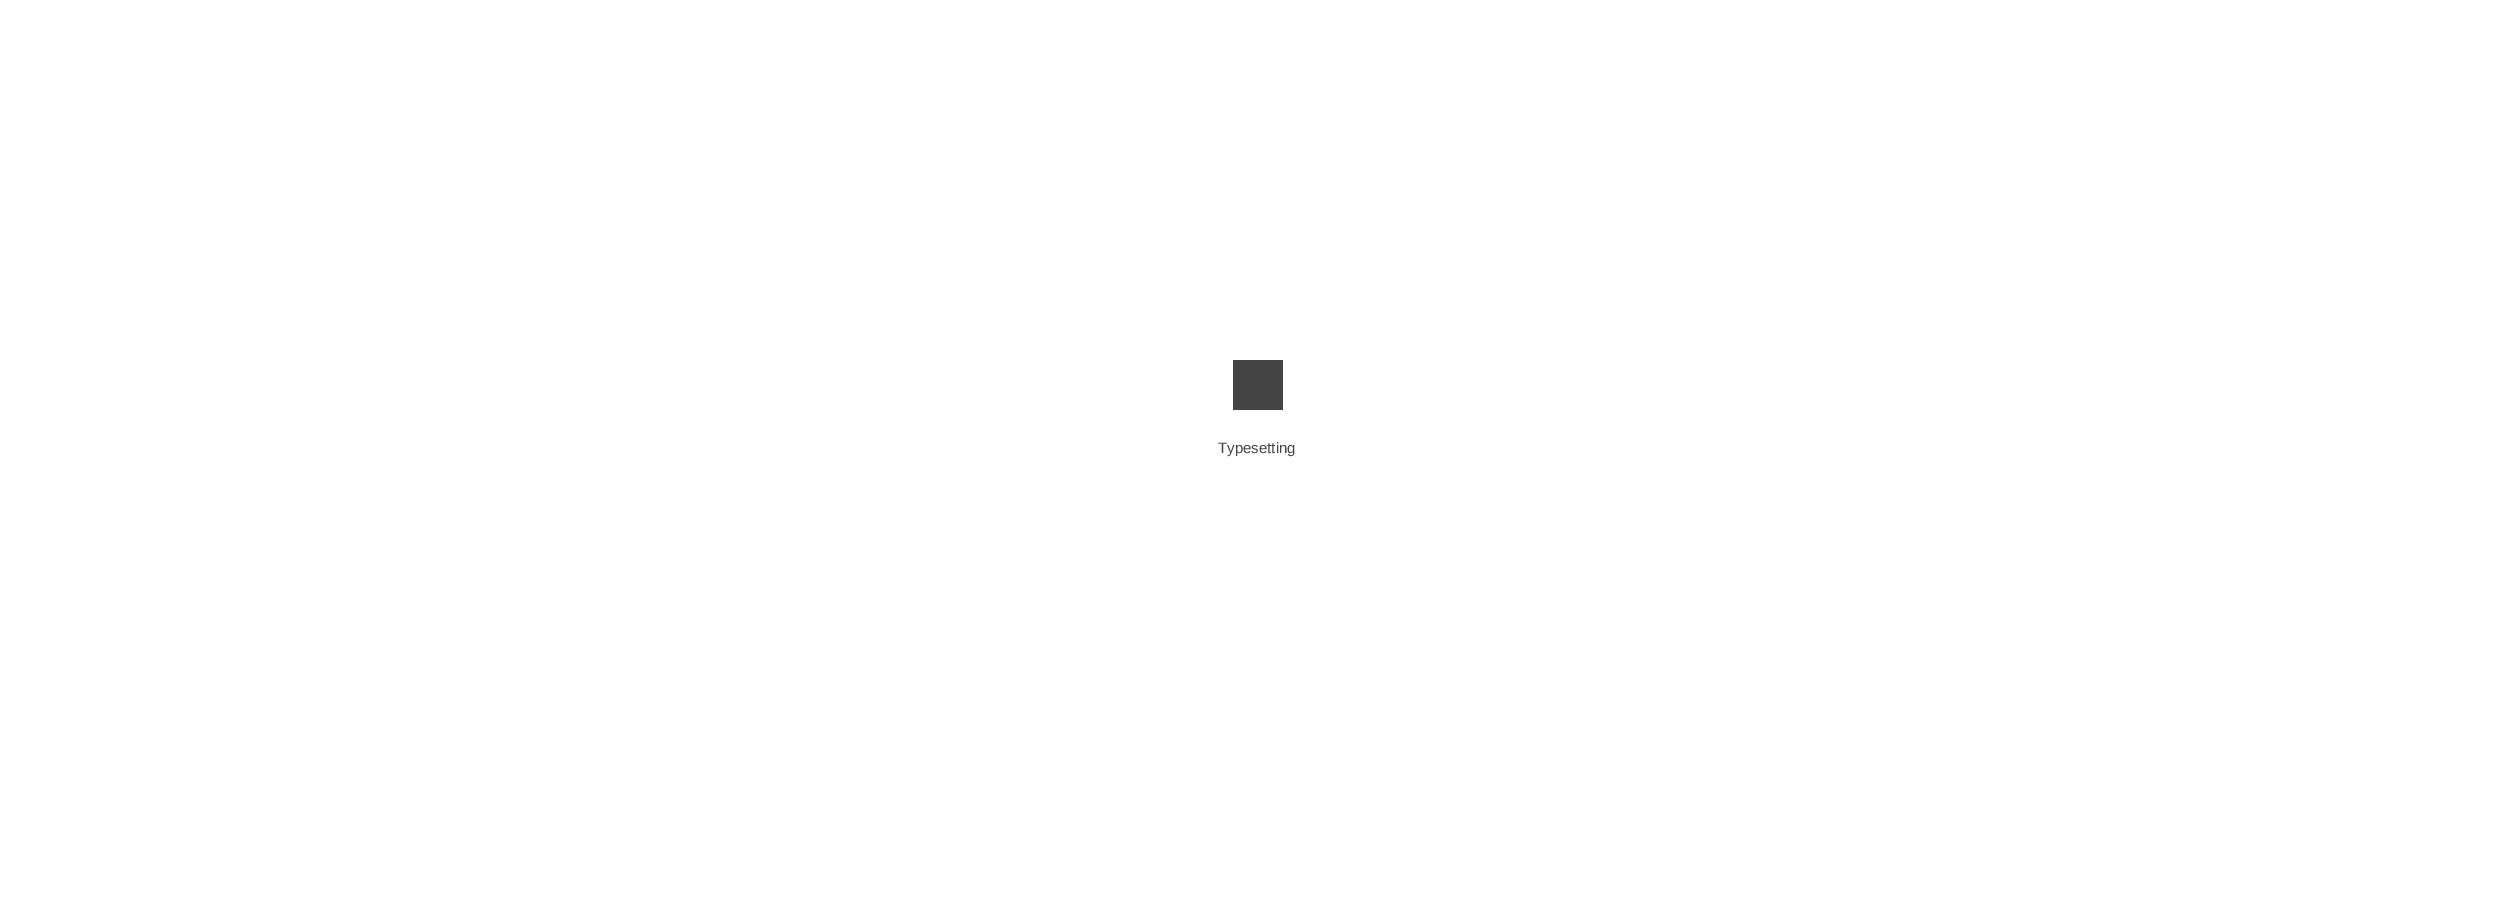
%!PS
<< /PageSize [2513 899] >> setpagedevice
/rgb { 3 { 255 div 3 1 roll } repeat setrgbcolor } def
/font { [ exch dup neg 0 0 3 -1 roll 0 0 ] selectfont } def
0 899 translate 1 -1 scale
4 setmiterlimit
255 255 255 rgb
0 0 2513 899 rectfill
68 68 68 rgb
1233 360 50 50 rectfill
/LiberationSans-Regular 15 font
1218 453 moveto (Typesetting) show
showpage
